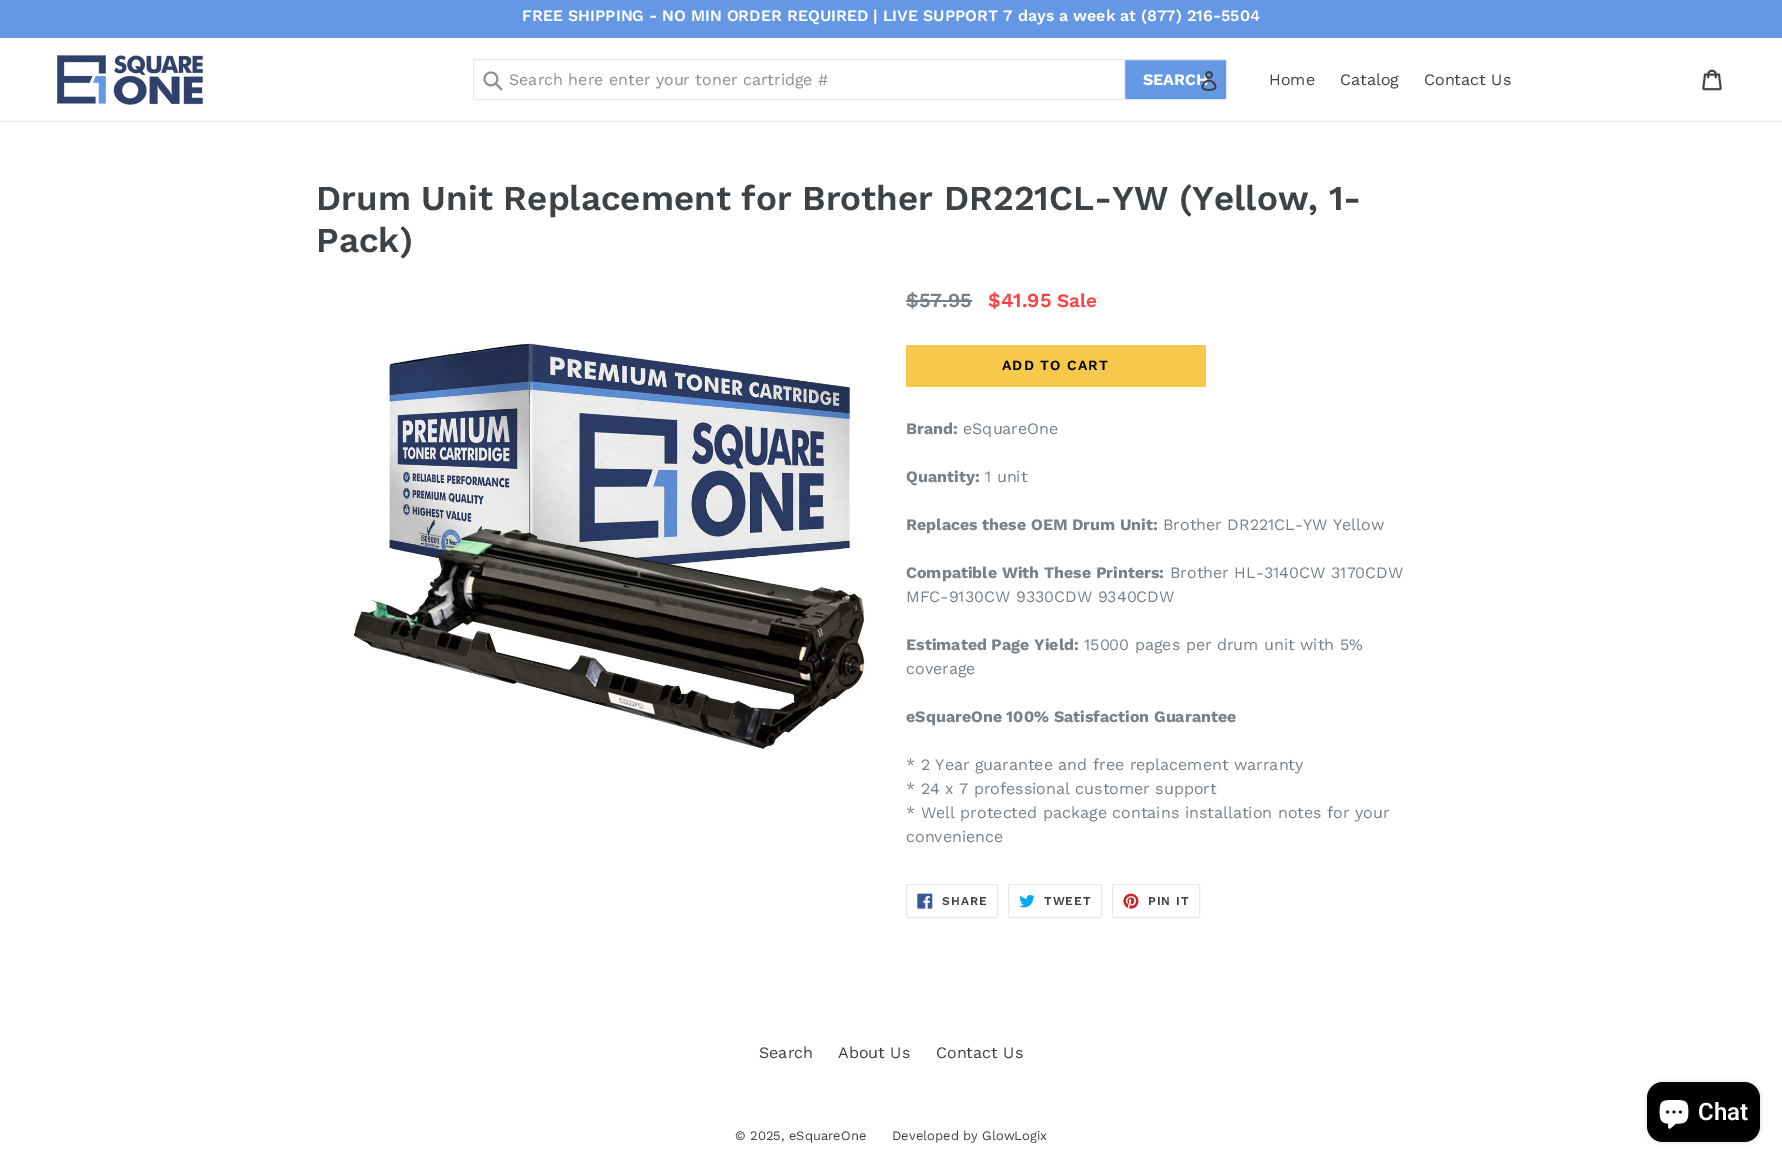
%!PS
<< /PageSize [1782 1163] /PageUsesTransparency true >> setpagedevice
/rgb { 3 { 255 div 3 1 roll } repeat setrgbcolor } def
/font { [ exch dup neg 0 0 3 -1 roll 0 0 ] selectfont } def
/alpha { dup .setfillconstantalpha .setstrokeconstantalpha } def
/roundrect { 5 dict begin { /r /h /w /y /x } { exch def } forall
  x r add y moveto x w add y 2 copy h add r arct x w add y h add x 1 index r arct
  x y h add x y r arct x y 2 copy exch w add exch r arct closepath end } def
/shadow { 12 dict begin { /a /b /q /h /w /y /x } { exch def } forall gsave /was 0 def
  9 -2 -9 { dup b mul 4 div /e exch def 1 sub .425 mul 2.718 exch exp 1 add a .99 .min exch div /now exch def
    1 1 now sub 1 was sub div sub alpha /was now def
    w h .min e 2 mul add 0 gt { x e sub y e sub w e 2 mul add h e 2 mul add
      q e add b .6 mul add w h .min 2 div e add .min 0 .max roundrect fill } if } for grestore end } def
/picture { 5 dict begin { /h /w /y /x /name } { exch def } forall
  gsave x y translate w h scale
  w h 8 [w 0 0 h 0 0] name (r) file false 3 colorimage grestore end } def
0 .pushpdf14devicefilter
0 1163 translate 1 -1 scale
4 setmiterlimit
255 255 255 rgb
0 0 1782 1163 rectfill
100 152 229 rgb
0 0 1782 38 rectfill
232 233 235 rgb
0 121 1782 1 rectfill
(img/1.rgb) 57 55 146 50 picture
473.5 59.5 705 40 1.5 roundrect stroke
(img/2.rgb) 483 71 20 20 picture
100 152 229 rgb
1124.5 59.5 102 40 1.5 roundrect gsave fill grestore
232 233 235 rgb
stroke
(img/4.rgb) 1702 69 20 22 picture
(img/5.rgb) 352 343 516 407 picture
120 129 136 rgb
906 300 66 2 rectfill
246 201 77 rgb
906 345 300 42 2 roundrect fill
232 233 235 rgb
906.5 884.5 91 33 1.5 roundrect stroke
(img/6.rgb) 917 893 16 16 picture
1008.5 884.5 93 33 1.5 roundrect stroke
(img/7.rgb) 1019 894 16 14 picture
1112.5 884.5 87 33 1.5 roundrect stroke
(img/8.rgb) 1123 893 16 16 picture
0 0 0 rgb
1647 1082 113 60 16 2.5 0.15 shadow
1647 1082 113 60 16 roundrect fill
(img/9.rgb) 1659 1100 30 29 picture
/WorkSans-SemiBold 16 font
255 255 255 rgb
522 21 moveto (FREE SHIPPING - NO MIN ORDER REQUIRED | LIVE SUPPORT 7 days a week at \(877\) 216-5504) show
/WorkSans-Regular 16 font
139 142 144 rgb
509 85 moveto (Search here enter your toner cartridge #) show
/WorkSans-Bold 16 font
255 255 255 rgb
1143 85 moveto (SEARCH) show
(img/3.rgb) 1201 71 16 20 picture
/WorkSans-Regular 16 font
61 66 70 rgb
[
  [(Home) 1269 85]
  [(Catalog) 1340 85]
  [(Contact Us) 1424 85]
] { aload pop moveto show } forall
/WorkSans-SemiBold 35 font
316 210 moveto (Drum Unit Replacement for Brother DR221CL-YW \(Yellow, 1-) show
316 252 moveto (Pack\)) show
/WorkSans-SemiBold 20 font
120 129 136 rgb
906 307 moveto ($57.95) show
252 66 66 rgb
988 307 moveto ($41.95) show
/WorkSans-SemiBold 19 font
1057 307 moveto (Sale) show
/WorkSans-SemiBold 14 font
0 0 0 rgb
1002 370 moveto 1.1 0 (ADD TO CART) ashow
/WorkSans-Bold 16 font
120 129 136 rgb
906 434 moveto (Brand:) show
/WorkSans-Regular 16 font
963 434 moveto (eSquareOne) show
/WorkSans-Bold 16 font
906 482 moveto (Quantity:) show
/WorkSans-Regular 16 font
985 482 moveto (1 unit) show
/WorkSans-Bold 16 font
906 530 moveto (Replaces these OEM Drum Unit:) show
/WorkSans-Regular 16 font
1163 530 moveto (Brother DR221CL-YW Yellow) show
/WorkSans-Bold 16 font
906 578 moveto (Compatible With These Printers:) show
/WorkSans-Regular 16 font
1170 578 moveto (Brother HL-3140CW 3170CDW) show
906 602 moveto (MFC-9130CW 9330CDW 9340CDW) show
/WorkSans-Bold 16 font
906 650 moveto (Estimated Page Yield:) show
/WorkSans-Regular 16 font
1084 650 moveto (15000 pages per drum unit with 5%) show
906 674 moveto (coverage) show
/WorkSans-Bold 16 font
906 722 moveto (eSquareOne 100% Satisfaction Guarantee) show
/WorkSans-Regular 16 font
[
  [(* 2 Year guarantee and free replacement warranty) 906 770]
  [(* 24 x 7 professional customer support) 906 794]
  [(* Well protected package contains installation notes for your) 906 818]
  [(convenience) 906 842]
] { aload pop moveto show } forall
/WorkSans-SemiBold 12 font
61 66 70 rgb
942 905 moveto 1 0 (SHARE) ashow
1044 905 moveto 1 0 (TWEET) ashow
1148 905 moveto 1 0 (PIN IT) ashow
/WorkSans-Regular 16 font
[
  [(Search) 759 1058]
  [(About Us) 838 1058]
  [(Contact Us) 936 1058]
] { aload pop moveto show } forall
/WorkSans-Regular 13 font
735 1140 moveto (© 2025, eSquareOne) show
892 1140 moveto (Developed by GlowLogix) show
/Roboto-SemiBold 24 font
255 255 255 rgb
1698 1120 moveto (Chat) show
.poppdf14devicefilter showpage
